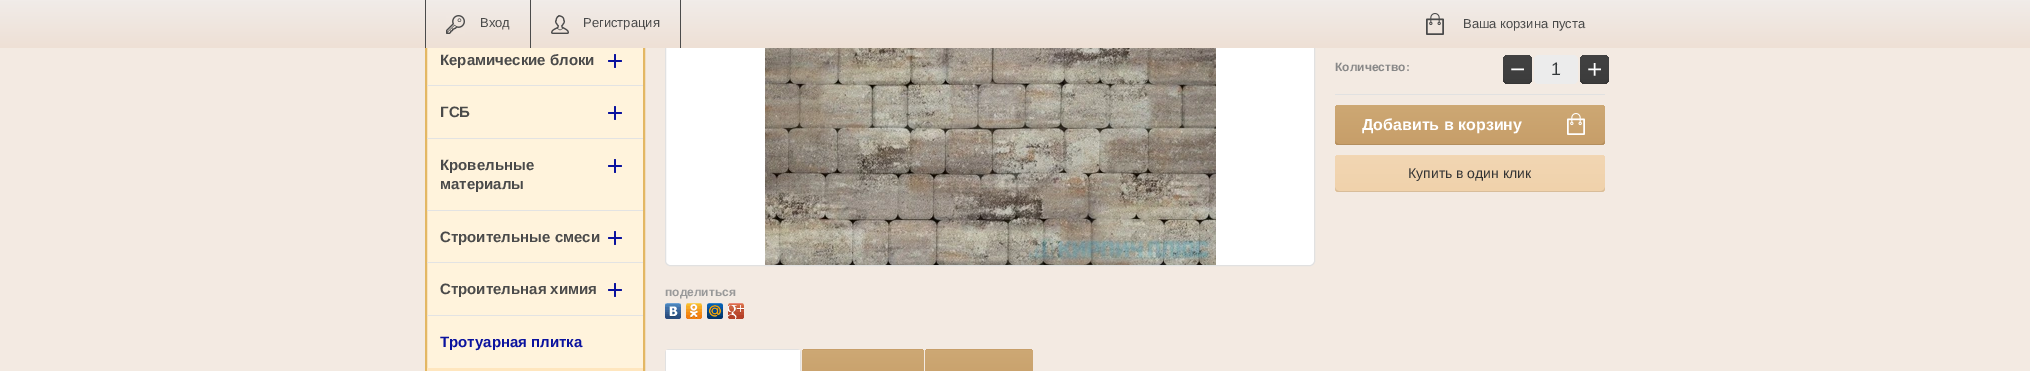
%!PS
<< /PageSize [2030 371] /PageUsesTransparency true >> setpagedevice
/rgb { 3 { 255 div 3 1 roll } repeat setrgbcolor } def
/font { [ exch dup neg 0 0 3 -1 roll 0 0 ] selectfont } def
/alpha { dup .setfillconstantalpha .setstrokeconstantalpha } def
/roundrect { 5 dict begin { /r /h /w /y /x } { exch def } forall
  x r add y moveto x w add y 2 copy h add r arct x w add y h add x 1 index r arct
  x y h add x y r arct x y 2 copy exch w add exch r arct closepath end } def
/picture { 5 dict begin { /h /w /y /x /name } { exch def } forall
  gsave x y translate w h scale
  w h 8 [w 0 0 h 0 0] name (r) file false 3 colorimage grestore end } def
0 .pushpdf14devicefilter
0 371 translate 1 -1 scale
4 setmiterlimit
243 234 226 rgb
0 0 2030 371 rectfill
255 243 220 rgb
427 48 216 320 rectfill
227 183 99 rgb
2 setlinewidth
426 -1 218 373 rectstroke
255 255 255 rgb
665.5 -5.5 649 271 4.5 roundrect gsave fill grestore
225 225 225 rgb
1 setlinewidth
stroke
gsave 0 0 moveto 2030 0 lineto 2030 48 lineto 0 48 lineto closepath clip newpath
<< /ShadingType 2 /ColorSpace /DeviceRGB /Coords [1015 48 1015 0] /Extend [true true] /Function << /FunctionType 2 /Domain [0 1] /C0 [0.933 0.878 0.835] /C1 [0.945 0.925 0.914] /N 1 >> >> shfill grestore
75 75 75 rgb
425 0 1 48 rectfill
(img/1.rgb) 446 15 19 19 picture
530 0 1 48 rectfill
(img/2.rgb) 551 15 18 19 picture
680 0 1 48 rectfill
(img/3.rgb) 1426 13 18 22 picture
(img/4.rgb) 608 54 14 14 picture
227 227 227 rgb
427 85 216 1 rectfill
(img/4.rgb) 608 106 14 14 picture
427 138 216 1 rectfill
(img/4.rgb) 608 159 14 14 picture
427 210 216 1 rectfill
(img/4.rgb) 608 231 14 14 picture
427 262 216 1 rectfill
(img/4.rgb) 608 283 14 14 picture
[
  [427 315 216 1 227 227 227]
  [427 368 216 3 255 230 190]
  [1335 94 270 1 225 225 225]
] { aload pop rgb rectfill } forall
gsave 1503 55 29 29 5 roundrect clip newpath
<< /ShadingType 2 /ColorSpace /DeviceRGB /Coords [1518 84 1518 55] /Extend [true true] /Function << /FunctionType 2 /Domain [0 1] /C0 [0.235 0.235 0.235] /C1 [0.259 0.259 0.259] /N 1 >> >> shfill grestore
0.1 alpha
0 0 0 rgb
1532 78 moveto 1531.5 81 1530 83 1527 83 curveto 1511 83 lineto 1505.5 83 1503.5 81.5 1503 78 curveto 1503 83.5 1506.5 84 1511 84 curveto 1524 84 lineto 1528.5 84 1532 84 1532 78 curveto closepath fill
1 alpha
236 236 236 rgb
1534 55 44 29 5 roundrect fill
gsave 1580 55 29 29 5 roundrect clip newpath
<< /ShadingType 2 /ColorSpace /DeviceRGB /Coords [1595 84 1595 55] /Extend [true true] /Function << /FunctionType 2 /Domain [0 1] /C0 [0.235 0.235 0.235] /C1 [0.259 0.259 0.259] /N 1 >> >> shfill grestore
0.1 alpha
0 0 0 rgb
1609 78 moveto 1608.5 81 1607 83 1604 83 curveto 1588 83 lineto 1582.5 83 1580.5 81.5 1580 78 curveto 1580 83.5 1583.5 84 1588 84 curveto 1601 84 lineto 1605.5 84 1609 84 1609 78 curveto closepath fill
1 alpha
gsave 1335 105 270 40 4 roundrect clip newpath
<< /ShadingType 2 /ColorSpace /DeviceRGB /Coords [1470 145 1470 105] /Extend [true true] /Function << /FunctionType 2 /Domain [0 1] /C0 [0.78 0.62 0.412] /C1 [0.804 0.659 0.455] /N 1 >> >> shfill grestore
0.1 alpha
1335 140 moveto 1335 143 1336 145 1339 145 curveto 1601 145 lineto 1604 145 1605 143 1605 140 curveto 1605 142 1603 144 1601 144 curveto 1339 144 lineto 1337 144 1335 142 1335 140 curveto closepath fill
1 alpha
(img/5.rgb) 1567 113 18 22 picture
gsave 1335 155 270 37 4 roundrect clip newpath
<< /ShadingType 2 /ColorSpace /DeviceRGB /Coords [1470 192 1470 155] /Extend [true true] /Function << /FunctionType 2 /Domain [0 1] /C0 [0.941 0.824 0.671] /C1 [0.949 0.839 0.702] /N 1 >> >> shfill grestore
0.1 alpha
1335 187 moveto 1335 190 1336 192 1339 192 curveto 1601 192 lineto 1604 192 1605 190 1605 187 curveto 1605 189 1603 191 1601 191 curveto 1339 191 lineto 1337 191 1335 189 1335 187 curveto closepath fill
1 alpha
(img/6.rgb) 765 48 451 217 picture
(img/7.rgb) 665 303 16 16 picture
(img/8.rgb) 686 303 16 16 picture
(img/9.rgb) 707 303 16 16 picture
(img/10.rgb) 728 303 16 16 picture
225 225 225 rgb
669 349 moveto 797 349 lineto 799 349 801 351 801 353 curveto 801 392 lineto 665 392 lineto 665 353 lineto 665 351 667 349 669 349 curveto closepath 669 350 moveto 797 350 lineto 799 350 800 351 800 353 curveto 800 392 lineto 666 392 lineto 666 353 lineto 666 351 667 350 669 350 curveto closepath eofill
255 255 255 rgb
666 350 134 21 rectfill
gsave
806 349 moveto 920 349 lineto 922 349 924 351 924 353 curveto 924 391 lineto 802 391 lineto 802 353 lineto 802 351 804 349 806 349 curveto closepath clip newpath
gsave 802 349 moveto 924 349 lineto 924 350 lineto 802 350 lineto closepath clip newpath
<< /ShadingType 2 /ColorSpace /DeviceRGB /Coords [863 350 863 309] /Extend [true true] /Function << /FunctionType 2 /Domain [0 1] /C0 [0.78 0.62 0.412] /C1 [0.804 0.659 0.455] /N 1 >> >> shfill grestore
gsave 802 350 moveto 924 350 lineto 924 371 lineto 802 371 lineto closepath clip newpath
<< /ShadingType 2 /ColorSpace /DeviceRGB /Coords [863 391 863 350] /Extend [true true] /Function << /FunctionType 2 /Domain [0 1] /C0 [0.78 0.62 0.412] /C1 [0.804 0.659 0.455] /N 1 >> >> shfill grestore
grestore
gsave
929 349 moveto 1029 349 lineto 1031 349 1033 351 1033 353 curveto 1033 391 lineto 925 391 lineto 925 353 lineto 925 351 927 349 929 349 curveto closepath clip newpath
gsave 925 349 moveto 1033 349 lineto 1033 350 lineto 925 350 lineto closepath clip newpath
<< /ShadingType 2 /ColorSpace /DeviceRGB /Coords [979 350 979 309] /Extend [true true] /Function << /FunctionType 2 /Domain [0 1] /C0 [0.78 0.62 0.412] /C1 [0.804 0.659 0.455] /N 1 >> >> shfill grestore
gsave 925 350 moveto 1033 350 lineto 1033 371 lineto 925 371 lineto closepath clip newpath
<< /ShadingType 2 /ColorSpace /DeviceRGB /Coords [979 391 979 350] /Extend [true true] /Function << /FunctionType 2 /Domain [0 1] /C0 [0.78 0.62 0.412] /C1 [0.804 0.659 0.455] /N 1 >> >> shfill grestore
grestore
/LiberationSans-Regular 13 font
74 74 74 rgb
[
  [(Вход) 480 27]
  [(Регистрация) 583 27]
  [(Ваша корзина пуста) 1463 28]
] { aload pop moveto show } forall
/LiberationSans-Bold 15 font
[
  [(Керамические блоки) 440 65]
  [(ГСБ) 440 117]
  [(Кровельные) 440 170]
  [(материалы) 440 189]
  [(Строительные смеси) 440 242]
  [(Строительная химия) 440 294]
] { aload pop moveto show } forall
10 18 158 rgb
440 347 moveto (Тротуарная плитка) show
/LiberationSans-Bold 12 font
136 136 136 rgb
1335 71 moveto (Количество:) show
/LiberationSans-Regular 26 font
255 255 255 rgb
1510 78 moveto (−) show
/LiberationSans-Regular 18 font
52 56 58 rgb
1551 75 moveto (1) show
/LiberationSans-Regular 26 font
255 255 255 rgb
1587 78 moveto (+) show
/LiberationSans-Bold 16 font
1362 130 moveto (Добавить в корзину) show
/LiberationSans-Regular 14 font
51 51 51 rgb
1408 178 moveto (Купить в один клик) show
/LiberationSans-Bold 12 font
153 153 153 rgb
665 296 moveto (поделиться) show
.poppdf14devicefilter showpage
